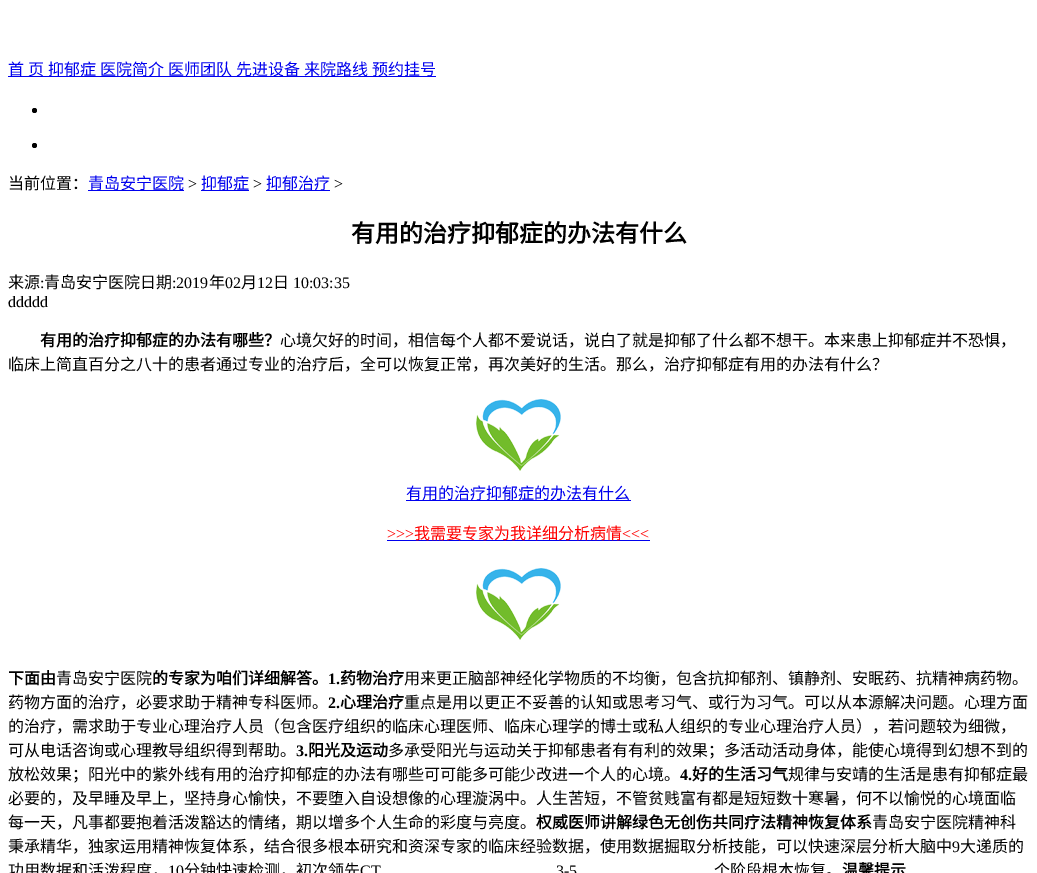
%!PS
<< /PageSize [1037 873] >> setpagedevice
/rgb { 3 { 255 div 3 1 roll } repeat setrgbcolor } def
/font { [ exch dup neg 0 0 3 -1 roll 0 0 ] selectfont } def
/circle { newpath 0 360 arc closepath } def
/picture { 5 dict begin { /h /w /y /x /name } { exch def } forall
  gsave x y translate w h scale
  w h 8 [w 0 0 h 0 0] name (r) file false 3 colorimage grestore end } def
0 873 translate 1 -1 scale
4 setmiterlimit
255 255 255 rgb
0 0 1037 873 rectfill
0 0 238 rgb
8 76 428 1 rectfill
0 0 0 rgb
34.5 110.5 2.5 circle fill
34.5 145.5 2.5 circle fill
[
  [88 190 96 1 0 0 238]
  [201 190 48 1 0 0 238]
  [266 190 64 1 0 0 238]
] { aload pop rgb rectfill } forall
(img/1.rgb) 476 399 85 72 picture
406 500 225 1 rectfill
387 540 263 1 rectfill
(img/1.rgb) 476 568 85 72 picture
/NotoSansCJKSC-Regular 16 font
[
  [(首) 8 75]
  [(页) 28 75]
  [(抑郁症) 48 75]
  [(医院简介) 100 75]
  [(医师团队) 168 75]
  [(先进设备) 236 75]
  [(来院路线) 304 75]
  [(预约挂号) 372 75]
] { aload pop moveto show } forall
0 0 0 rgb
8 189 moveto (当前位置：) show
0 0 238 rgb
88 189 moveto (青岛安宁医院) show
/LiberationSerif-Regular 16 font
0 0 0 rgb
188 189 moveto (>) show
/NotoSansCJKSC-Regular 16 font
0 0 238 rgb
201 189 moveto (抑郁症) show
/LiberationSerif-Regular 16 font
0 0 0 rgb
253 189 moveto (>) show
/NotoSansCJKSC-Regular 16 font
0 0 238 rgb
266 189 moveto (抑郁治疗) show
/LiberationSerif-Regular 16 font
0 0 0 rgb
334 189 moveto (>) show
/NotoSansCJKSC-Bold 24 font
351 242 moveto (有用的治疗抑郁症的办法有什么) show
/NotoSansCJKSC-Regular 16 font
8 288 moveto (来源) show
/LiberationSerif-Regular 16 font
40 288 moveto (:) show
/NotoSansCJKSC-Regular 16 font
44 288 moveto (青岛安宁医院日期) show
/LiberationSerif-Regular 16 font
172 288 moveto (:2019) show
/NotoSansCJKSC-Regular 16 font
209 288 moveto (年) show
/LiberationSerif-Regular 16 font
225 288 moveto (02) show
/NotoSansCJKSC-Regular 16 font
241 288 moveto (月) show
/LiberationSerif-Regular 16 font
257 288 moveto (12) show
/NotoSansCJKSC-Regular 16 font
273 288 moveto (日) show
/LiberationSerif-Regular 16 font
293 288 moveto (10:03:35) show
8 307 moveto (ddddd) show
/NotoSansCJKSC-Bold 16 font
40 346 moveto (有用的治疗抑郁症的办法有哪些？) show
/NotoSansCJKSC-Regular 16 font
280 346 moveto (心境欠好的时间，相信每个人都不爱说话，说白了就是抑郁了什么都不想干。本来患上抑郁症并不恐惧，) show
8 370 moveto (临床上简直百分之八十的患者通过专业的治疗后，全可以恢复正常，再次美好的生活。那么，治疗抑郁症有用的办法有什么？) show
0 0 238 rgb
406 499 moveto (有用的治疗抑郁症的办法有什么) show
/LiberationSerif-Regular 16 font
255 0 0 rgb
387 539 moveto (>>>) show
/NotoSansCJKSC-Regular 16 font
414 539 moveto (我需要专家为我详细分析病情) show
/LiberationSerif-Regular 16 font
622 539 moveto (<<<) show
/NotoSansCJKSC-Bold 16 font
0 0 0 rgb
8 684 moveto (下面由) show
/NotoSansCJKSC-Regular 16 font
56 684 moveto (青岛安宁医院) show
/NotoSansCJKSC-Bold 16 font
152 684 moveto (的专家为咱们详细解答。) show
/LiberationSerif-Bold 16 font
328 684 moveto (1.) show
/NotoSansCJKSC-Bold 16 font
340 684 moveto (药物治疗) show
/NotoSansCJKSC-Regular 16 font
404 684 moveto (用来更正脑部神经化学物质的不均衡，包含抗抑郁剂、镇静剂、安眠药、抗精神病药物。) show
8 708 moveto (药物方面的治疗，必要求助于精神专科医师。) show
/LiberationSerif-Bold 16 font
328 708 moveto (2.) show
/NotoSansCJKSC-Bold 16 font
340 708 moveto (心理治疗) show
/NotoSansCJKSC-Regular 16 font
[
  [(重点是用以更正不妥善的认知或思考习气、或行为习气。可以从本源解决问题。心理方面) 404 708]
  [(的治疗，需求助于专业心理治疗人员（包含医疗组织的临床心理医师、临床心理学的博士或私人组织的专业心理治疗人员），若问题较为细微，) 8 732]
  [(可从电话咨询或心理教导组织得到帮助。) 8 756]
] { aload pop moveto show } forall
/LiberationSerif-Bold 16 font
296 756 moveto (3.) show
/NotoSansCJKSC-Bold 16 font
308 756 moveto (阳光及运动) show
/NotoSansCJKSC-Regular 16 font
388 756 moveto (多承受阳光与运动关于抑郁患者有有利的效果；多活动活动身体，能使心境得到幻想不到的) show
8 780 moveto (放松效果；阳光中的紫外线有用的治疗抑郁症的办法有哪些可可能多可能少改进一个人的心境。) show
/LiberationSerif-Bold 16 font
680 780 moveto (4.) show
/NotoSansCJKSC-Bold 16 font
692 780 moveto (好的生活习气) show
/NotoSansCJKSC-Regular 16 font
[
  [(规律与安靖的生活是患有抑郁症最) 788 780]
  [(必要的，及早睡及早上，坚持身心愉快，不要堕入自设想像的心理漩涡中。人生苦短，不管贫贱富有都是短短数十寒暑，何不以愉悦的心境面临) 8 804]
  [(每一天，凡事都要抱着活泼豁达的情绪，期以增多个人生命的彩度与亮度。) 8 828]
] { aload pop moveto show } forall
/NotoSansCJKSC-Bold 16 font
536 828 moveto (权威医师讲解绿色无创伤共同疗法精神恢复体系) show
/NotoSansCJKSC-Regular 16 font
872 828 moveto (青岛安宁医院精神科) show
8 852 moveto (秉承精华，独家运用精神恢复体系，结合很多根本研究和资深专家的临床经验数据，使用数据掘取分析技能，可以快速深层分析大脑中) show
/LiberationSerif-Regular 16 font
952 852 moveto (9) show
/NotoSansCJKSC-Regular 16 font
960 852 moveto (大递质的) show
8 876 moveto (功用数据和活泼程度，) show
/LiberationSerif-Regular 16 font
168 876 moveto (10) show
/NotoSansCJKSC-Regular 16 font
184 876 moveto (分钟快速检测，初次领先) show
/LiberationSerif-Regular 16 font
360 876 moveto (CT) show
556 876 moveto (3-5) show
/NotoSansCJKSC-Regular 16 font
714 876 moveto (个阶段根本恢复。) show
/NotoSansCJKSC-Bold 16 font
842 876 moveto (温馨提示) show
showpage
